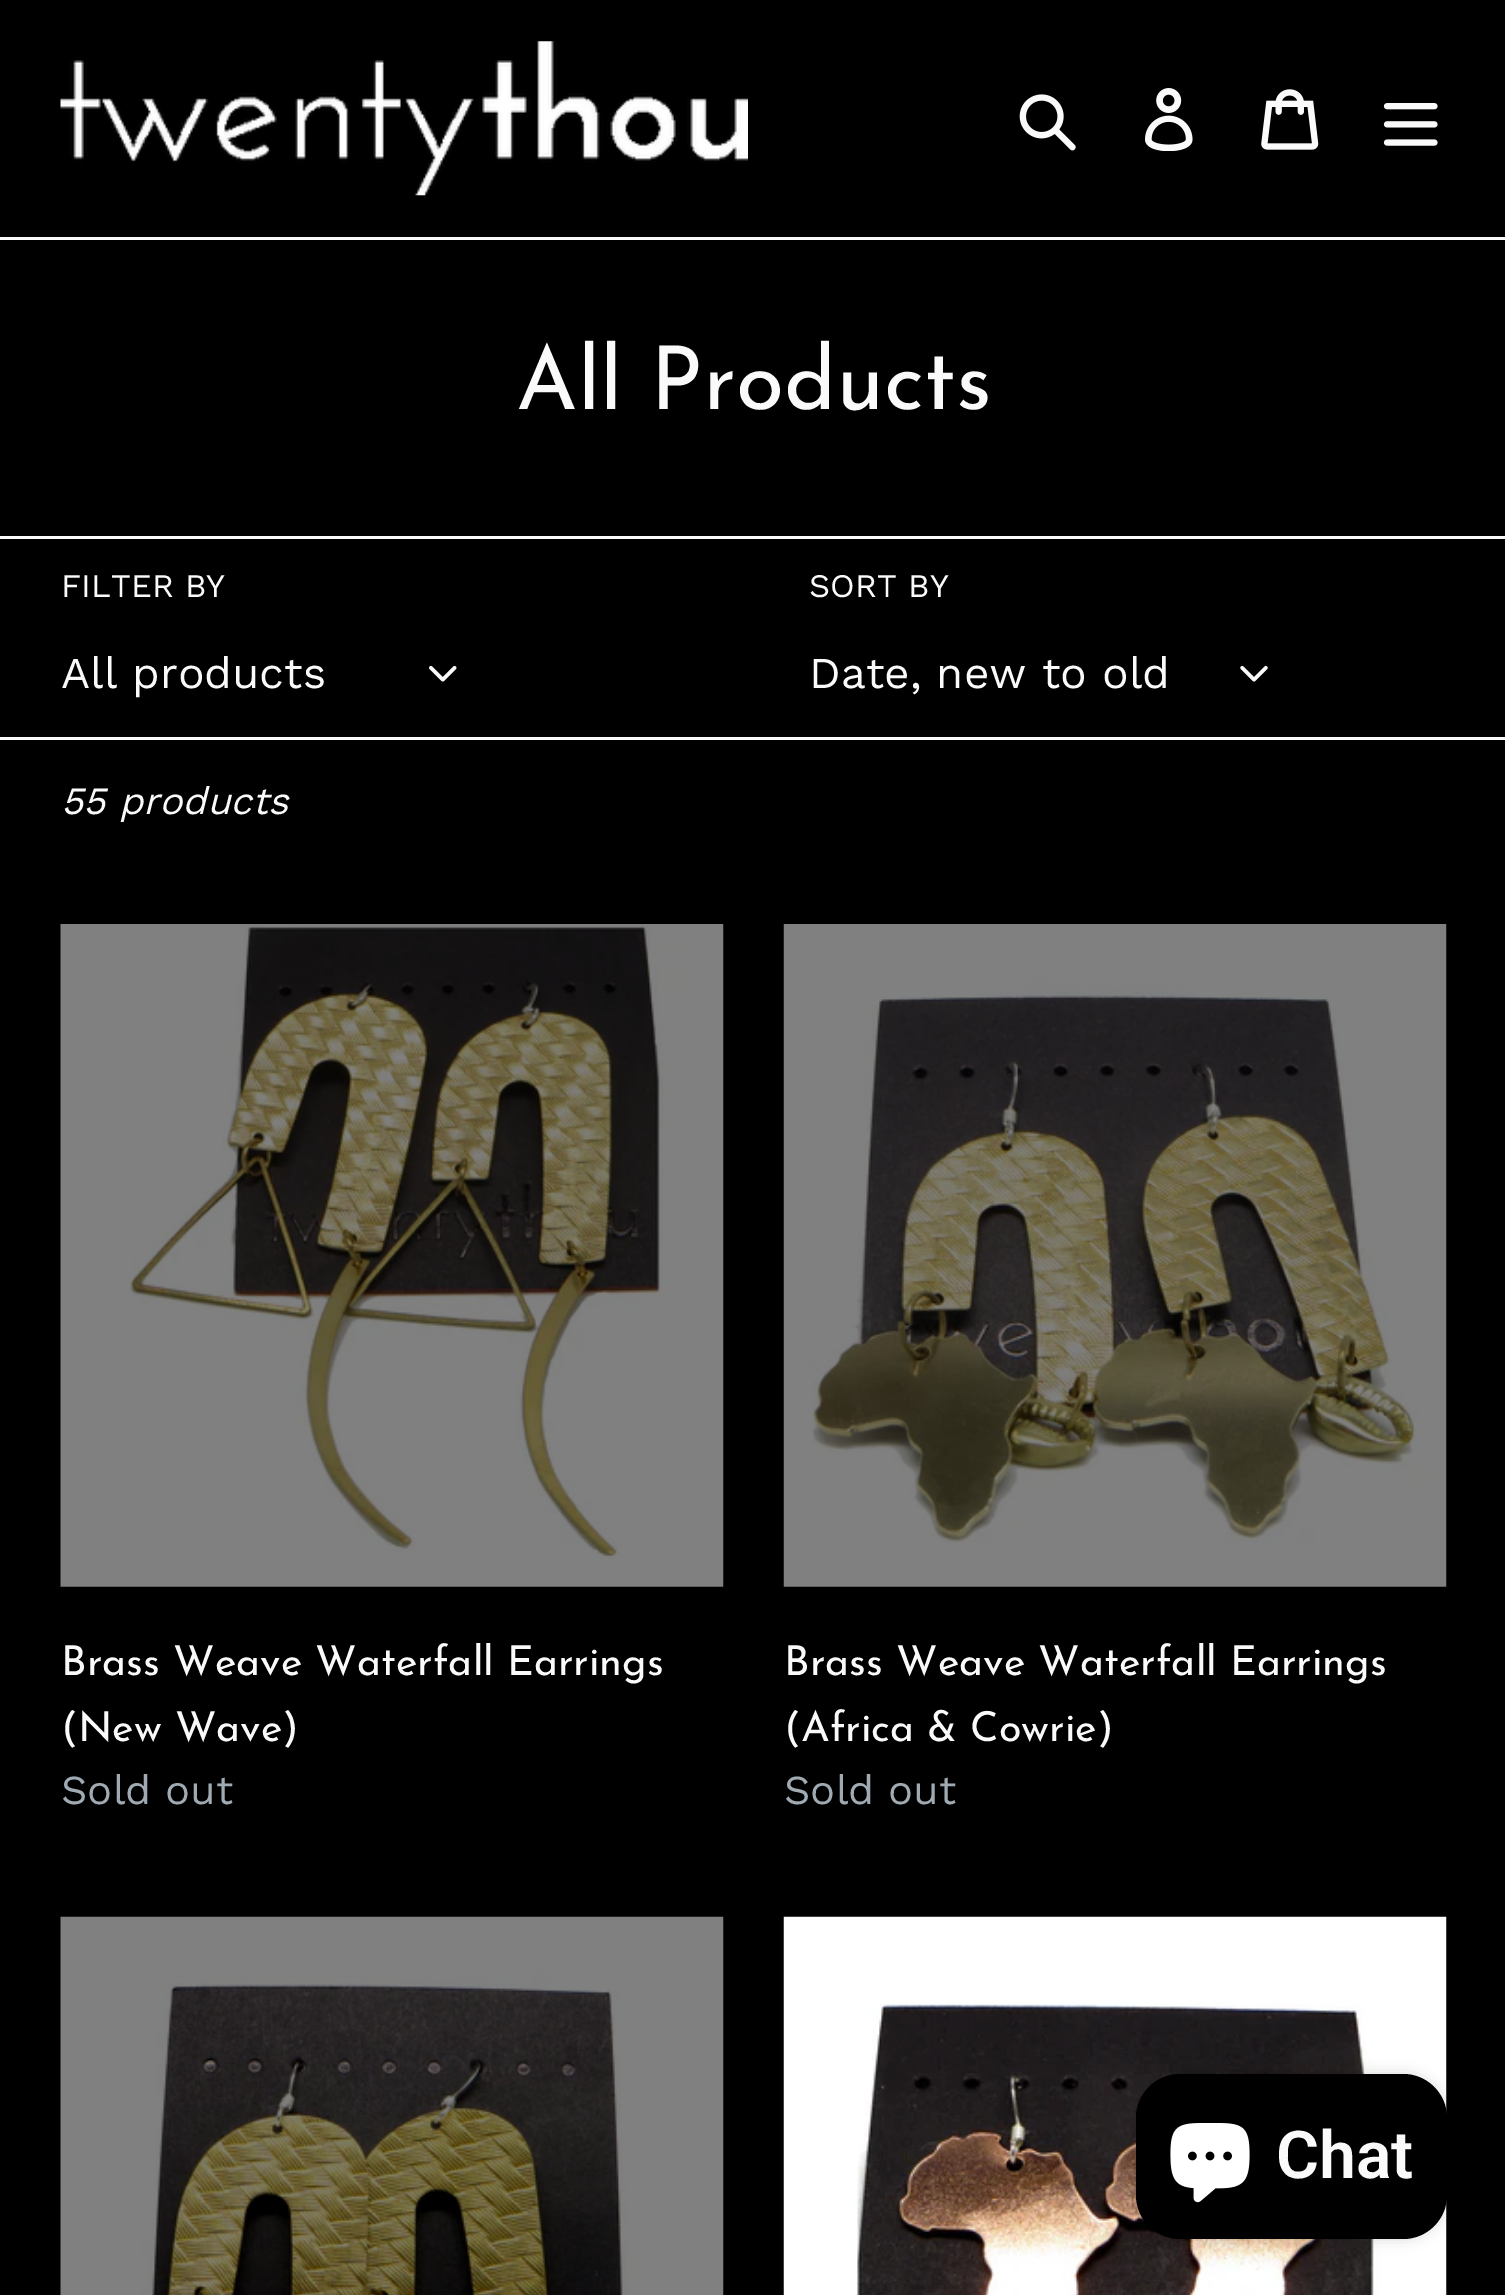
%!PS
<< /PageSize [1505 2295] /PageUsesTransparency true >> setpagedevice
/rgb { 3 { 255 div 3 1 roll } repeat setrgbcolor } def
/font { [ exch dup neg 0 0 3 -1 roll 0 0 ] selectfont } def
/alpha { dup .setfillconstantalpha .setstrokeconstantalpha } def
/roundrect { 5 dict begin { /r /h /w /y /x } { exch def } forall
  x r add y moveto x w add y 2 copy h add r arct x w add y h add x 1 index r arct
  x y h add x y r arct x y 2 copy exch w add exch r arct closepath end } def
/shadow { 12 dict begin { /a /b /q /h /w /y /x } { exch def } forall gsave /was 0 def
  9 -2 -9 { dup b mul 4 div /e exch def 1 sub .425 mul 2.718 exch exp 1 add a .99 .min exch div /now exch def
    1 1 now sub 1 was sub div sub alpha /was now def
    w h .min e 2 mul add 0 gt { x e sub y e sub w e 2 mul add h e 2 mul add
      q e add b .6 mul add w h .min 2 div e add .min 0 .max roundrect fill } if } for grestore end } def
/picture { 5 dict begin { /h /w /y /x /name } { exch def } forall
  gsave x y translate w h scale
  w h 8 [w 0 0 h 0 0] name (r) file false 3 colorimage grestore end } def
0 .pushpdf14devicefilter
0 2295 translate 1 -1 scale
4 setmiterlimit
0 0 0 rgb
0 0 1505 2295 rectfill
250 250 250 rgb
0 237 1505 3 rectfill
(img/1.rgb) 60 41 688 155 picture
(img/2.rgb) 1019 94 57 57 picture
(img/3.rgb) 1145 88 48 63 picture
(img/4.rgb) 1261 89 58 61 picture
(img/5.rgb) 1383 103 55 43 picture
0 536 1505 3 rectfill
(img/6.rgb) 429 665 28 17 picture
(img/7.rgb) 1240 665 28 17 picture
0 737 1505 3 rectfill
(img/8.rgb) 60 924 664 663 picture
(img/9.rgb) 783 924 664 663 picture
(img/10.rgb) 60 1916 664 379 picture
(img/11.rgb) 783 1916 664 379 picture
0 0 0 rgb
1136 2074 311 165 44 7 0.15 shadow
1136 2074 311 165 44 roundrect fill
(img/12.rgb) 1170 2123 80 80 picture
/JosefinSans-Regular 88 font
250 250 250 rgb
516 409 moveto (All Products) show
/WorkSans-Regular 33 font
61 597 moveto (FILTER BY) show
/WorkSans-Regular 44 font
61 688 moveto (All products) show
/WorkSans-Regular 33 font
809 597 moveto (SORT BY) show
/WorkSans-Regular 44 font
809 688 moveto (Date, new to old) show
/WorkSans-Italic 38.5 font
61 814 moveto (55 products) show
/JosefinSans-Regular 41.25 font
61 1675 moveto (Brass Weave Waterfall Earrings) show
61 1741 moveto (\(New Wave\)) show
/WorkSans-Regular 41.25 font
160 170 179 rgb
61 1804 moveto (Sold out) show
/JosefinSans-Regular 41.25 font
250 250 250 rgb
784 1675 moveto (Brass Weave Waterfall Earrings) show
784 1741 moveto (\(Africa & Cowrie\)) show
/WorkSans-Regular 41.25 font
160 170 179 rgb
784 1804 moveto (Sold out) show
/Roboto-SemiBold 66 font
250 250 250 rgb
1276 2178 moveto (Chat) show
.poppdf14devicefilter showpage
